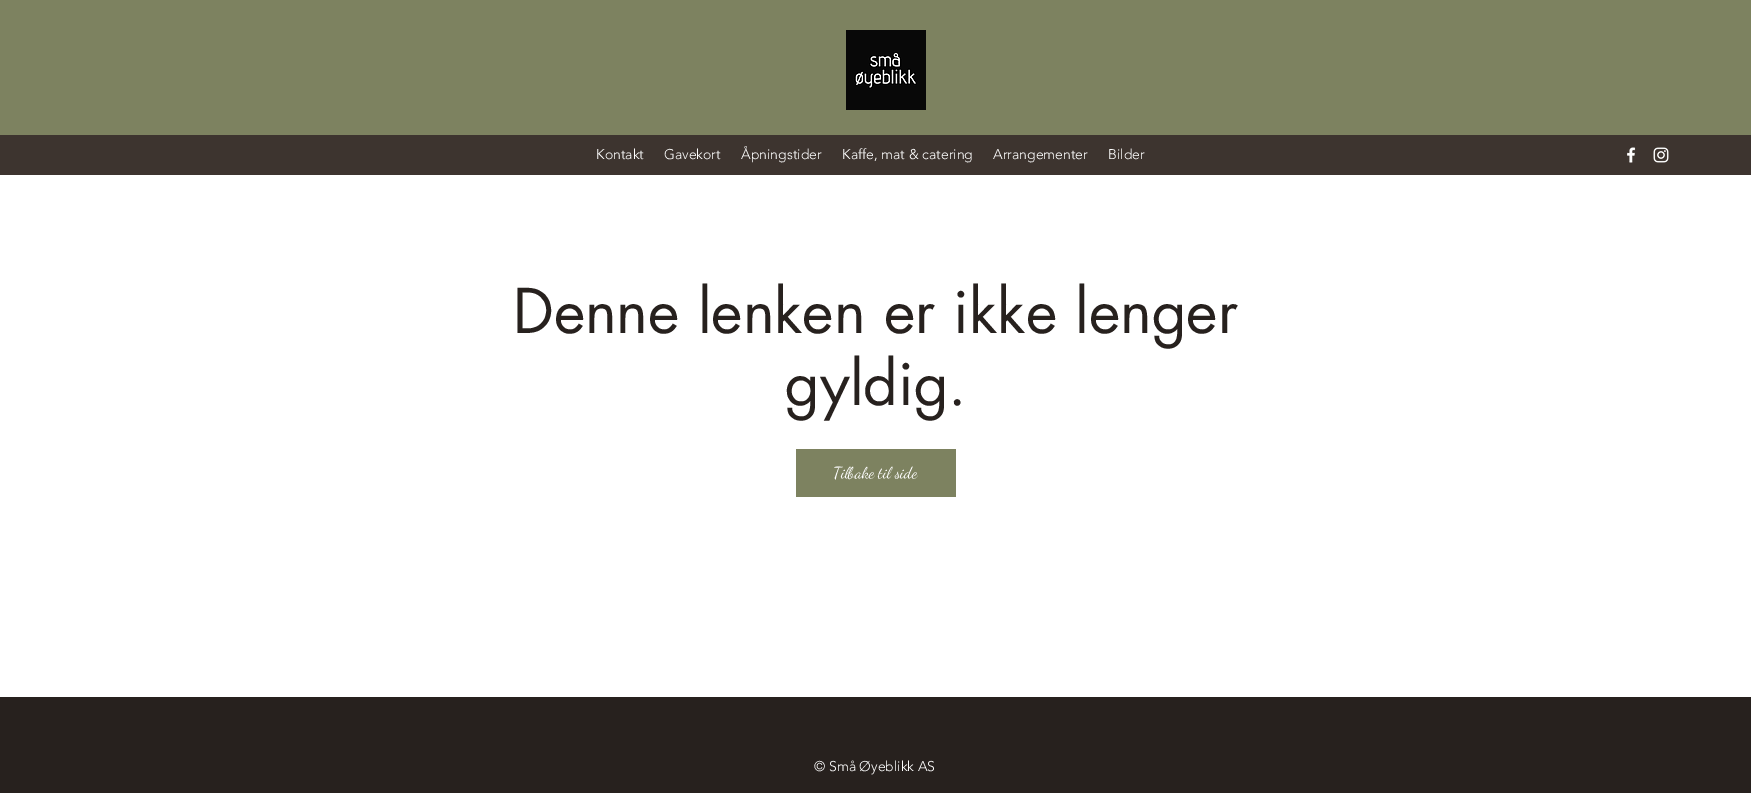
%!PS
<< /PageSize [1751 793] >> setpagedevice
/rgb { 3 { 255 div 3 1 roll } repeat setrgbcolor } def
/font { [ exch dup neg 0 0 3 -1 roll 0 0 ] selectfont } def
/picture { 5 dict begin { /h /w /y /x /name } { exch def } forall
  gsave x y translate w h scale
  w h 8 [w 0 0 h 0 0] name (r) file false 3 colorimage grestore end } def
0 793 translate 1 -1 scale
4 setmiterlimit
255 255 255 rgb
0 0 1751 793 rectfill
125 130 96 rgb
0 0 1751 135 rectfill
(img/1.rgb) 846 30 80 80 picture
61 52 47 rgb
0 135 1751 40 rectfill
(img/2.rgb) 1627 147 9 16 picture
(img/3.rgb) 1653 147 16 16 picture
125 130 96 rgb
796 449 160 48 rectfill
39 33 30 rgb
0 697 1751 96 rectfill
/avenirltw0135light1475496-Light 14 font
255 255 255 rgb
[
  [(Kontakt) 596 159]
  [(Gavekort) 664 159]
  [(Åpningstider) 741 159]
  [(Kaffe, mat & catering) 842 159]
  [(Arrangementer) 993 159]
  [(Bilder) 1108 159]
] { aload pop moveto show } forall
/futura-Regular 60 font
39 33 30 rgb
513 333 moveto (Denne lenken er ikke lenger) show
785 405 moveto (gyldig.) show
/DancingScript-Regular 16 font
255 255 255 rgb
833 478 moveto (Tilbake til side) show
/avenirltw0135light1475496-Light 14 font
814 771 moveto (© Små Øyeblikk AS) show
showpage
